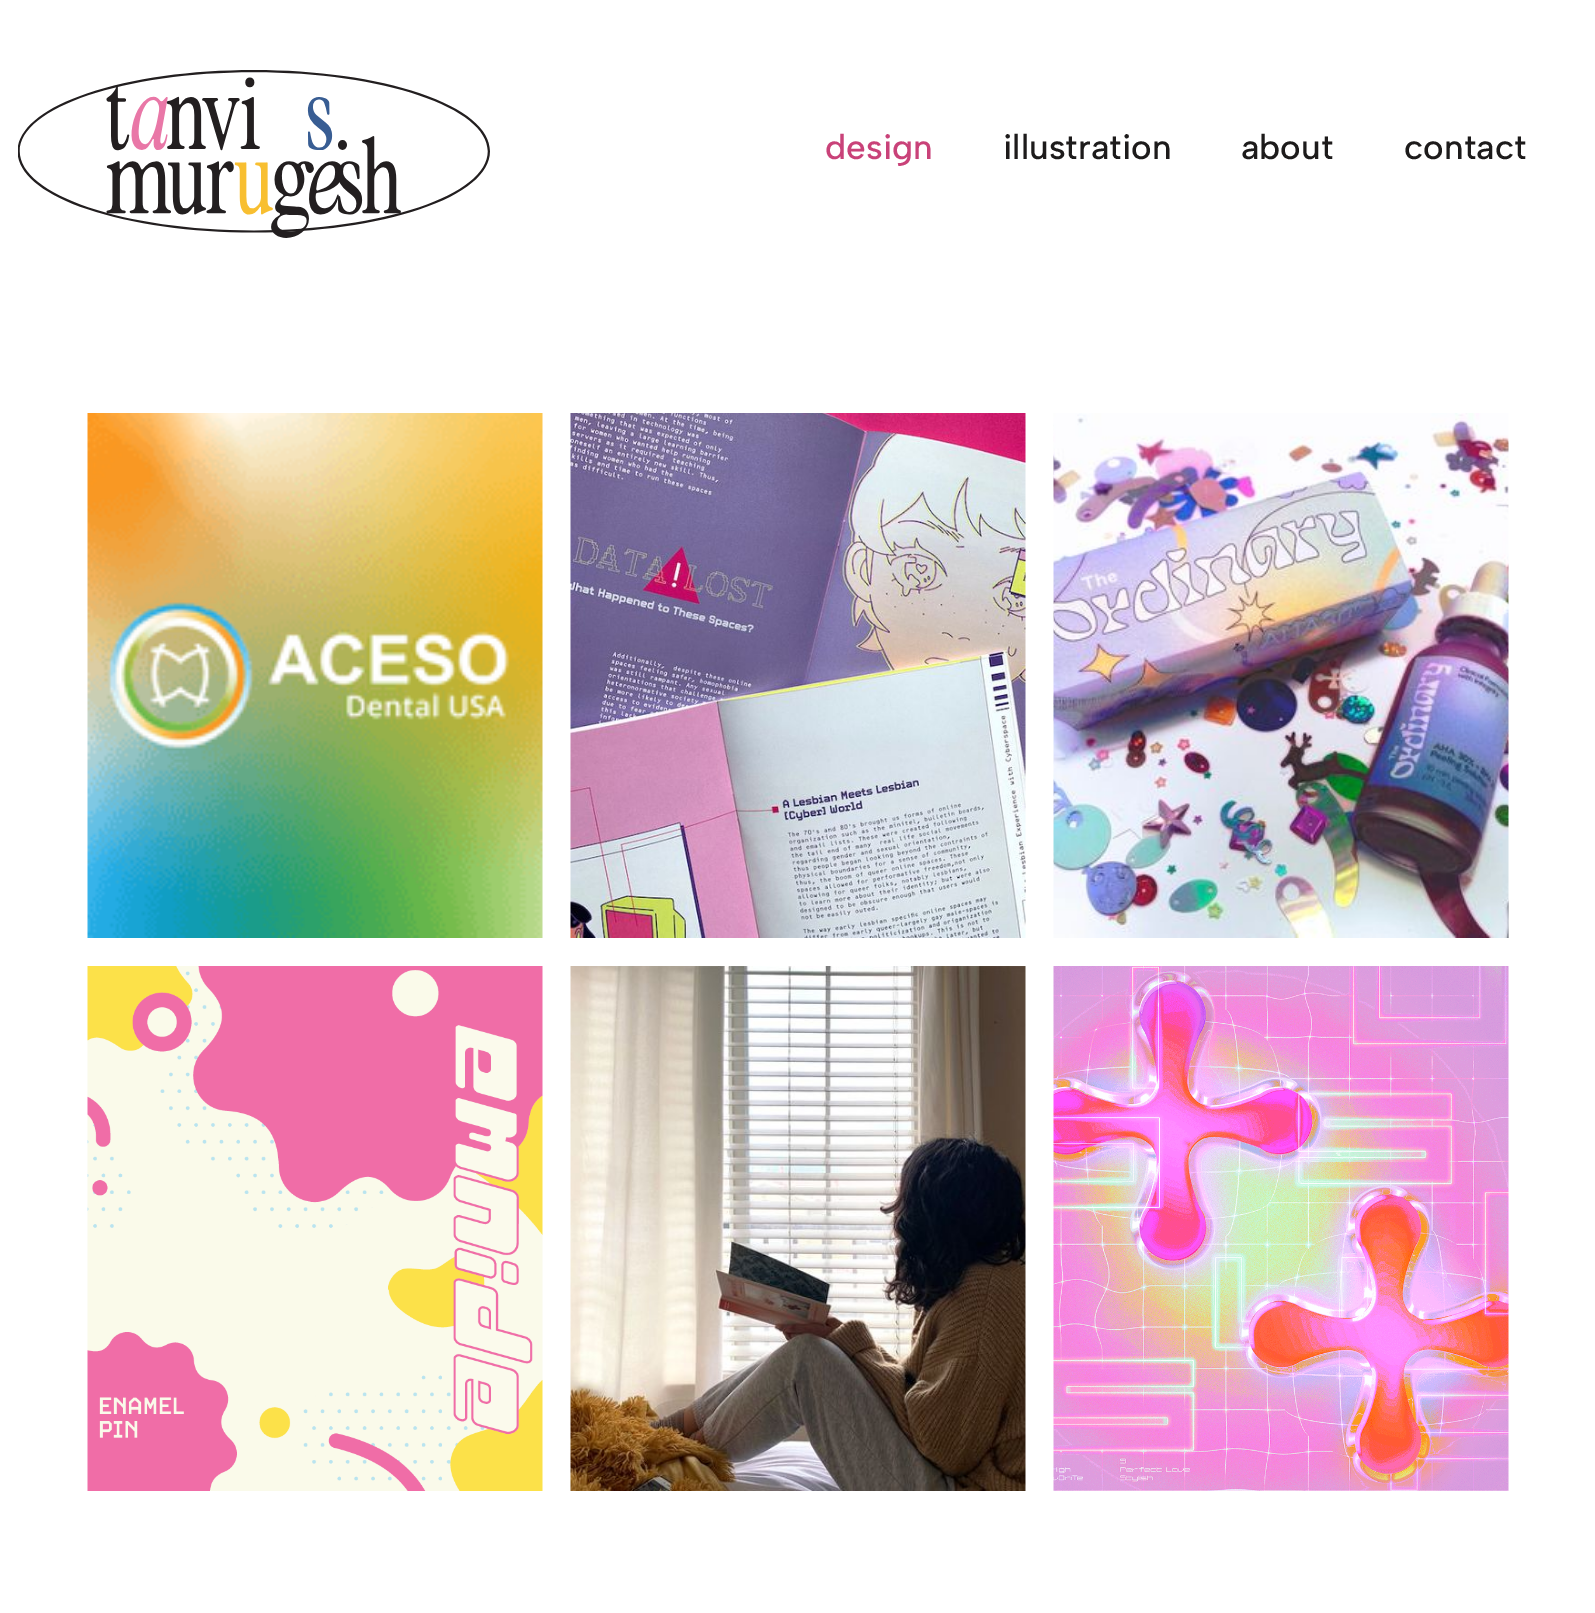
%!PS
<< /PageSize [1595 1613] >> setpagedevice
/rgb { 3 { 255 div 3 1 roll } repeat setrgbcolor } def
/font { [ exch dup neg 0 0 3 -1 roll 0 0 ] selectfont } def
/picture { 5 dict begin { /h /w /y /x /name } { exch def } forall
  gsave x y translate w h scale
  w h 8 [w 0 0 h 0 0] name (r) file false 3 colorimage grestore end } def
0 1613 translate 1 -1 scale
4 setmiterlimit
255 255 255 rgb
0 0 1595 1613 rectfill
(img/1.rgb) 18 70 472 168 picture
(img/2.rgb) 87 413 456 525 picture
(img/3.rgb) 570 413 456 525 picture
(img/4.rgb) 1053 413 456 525 picture
(img/5.rgb) 87 966 456 525 picture
(img/6.rgb) 570 966 456 525 picture
(img/7.rgb) 1053 966 456 525 picture
/AlbertSans-Medium 35 font
201 66 121 rgb
825 159 moveto (design) show
29 27 27 rgb
[
  [(illustration) 1003 159]
  [(about) 1241 159]
  [(contact) 1404 159]
] { aload pop moveto show } forall
showpage
